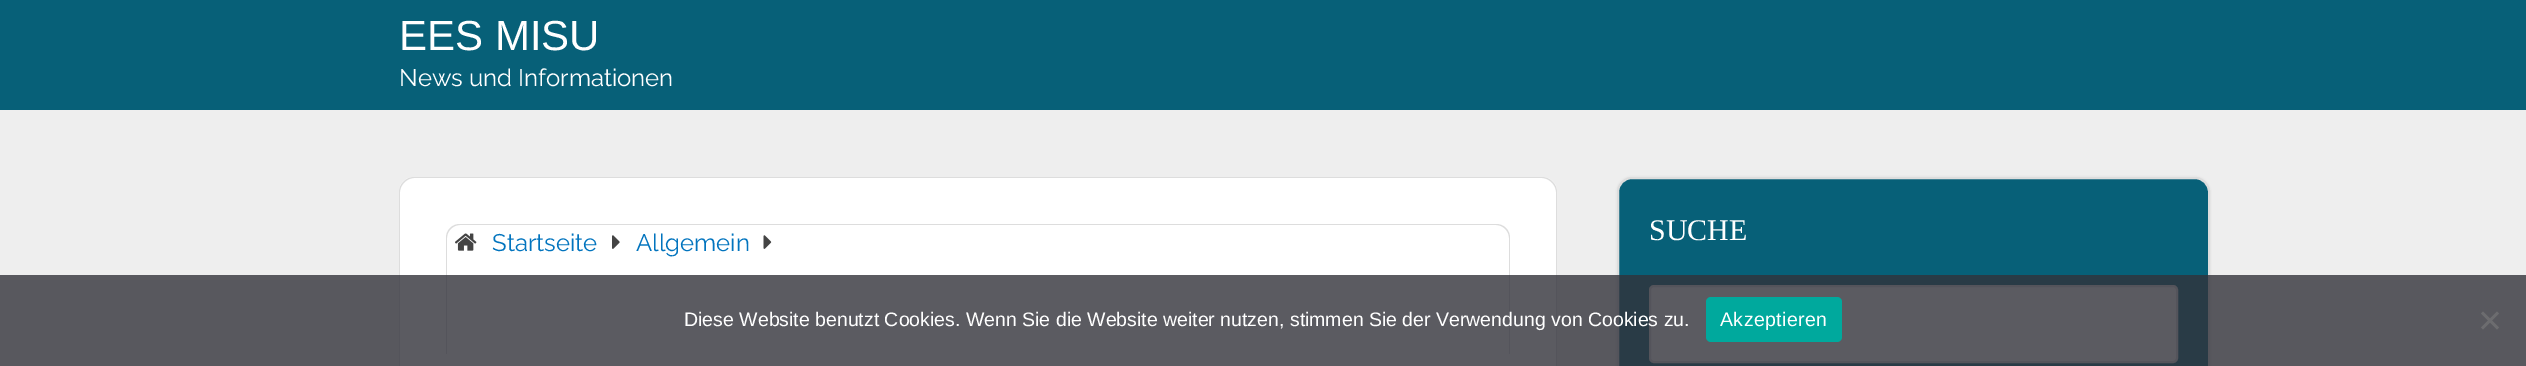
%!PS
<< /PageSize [2526 366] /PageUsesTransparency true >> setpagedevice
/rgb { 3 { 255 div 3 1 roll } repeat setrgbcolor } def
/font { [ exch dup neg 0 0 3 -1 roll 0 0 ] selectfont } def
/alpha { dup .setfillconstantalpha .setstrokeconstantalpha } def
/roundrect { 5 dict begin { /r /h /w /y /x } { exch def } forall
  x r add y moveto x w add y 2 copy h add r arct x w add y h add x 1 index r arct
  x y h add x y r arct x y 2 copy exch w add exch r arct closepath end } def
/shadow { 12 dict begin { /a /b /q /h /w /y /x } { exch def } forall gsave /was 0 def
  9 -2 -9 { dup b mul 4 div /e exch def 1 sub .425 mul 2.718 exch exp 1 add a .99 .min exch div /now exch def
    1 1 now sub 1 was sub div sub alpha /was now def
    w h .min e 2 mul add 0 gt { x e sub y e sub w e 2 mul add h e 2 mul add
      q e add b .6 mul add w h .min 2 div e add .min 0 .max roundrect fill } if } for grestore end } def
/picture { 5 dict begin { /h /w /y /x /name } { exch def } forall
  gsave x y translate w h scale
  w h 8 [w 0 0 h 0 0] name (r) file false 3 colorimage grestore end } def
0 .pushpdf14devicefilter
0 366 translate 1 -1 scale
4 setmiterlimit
238 238 238 rgb
0 0 2526 366 rectfill
7 96 120 rgb
0 0 2526 110 rectfill
50 50 50 rgb
1617 177 593 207 15 1 0.1 shadow
7 96 120 rgb
1618 178 591 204 14 roundrect gsave fill grestore
221 221 221 rgb
2 setlinewidth
stroke
255 255 255 rgb
1650 286 527 76 4 roundrect gsave fill grestore
221 221 221 rgb
stroke
255 255 255 rgb
414 177 moveto 1542 177 lineto 1550.5 177 1557 183.5 1557 192 curveto 1557 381 lineto 399 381 lineto 399 192 lineto 399 183.5 405.5 177 414 177 curveto closepath fill
221 221 221 rgb
414 177 moveto 1542 177 lineto 1550 177 1557 184 1557 192 curveto 1557 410 lineto 399 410 lineto 399 192 lineto 399 184 406 177 414 177 curveto closepath 414 178 moveto 1542 178 lineto 1549 178 1556 185 1556 192 curveto 1556 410 lineto 400 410 lineto 400 192 lineto 400 185 407 178 414 178 curveto closepath eofill
460 224 moveto 1496 224 lineto 1504 224 1510 230 1510 238 curveto 1510 354 lineto 446 354 lineto 446 238 lineto 446 230 452 224 460 224 curveto closepath 460 225 moveto 1496 225 lineto 1503 225 1509 231 1509 238 curveto 1509 354 lineto 447 354 lineto 447 238 lineto 447 231 453 225 460 225 curveto closepath eofill
(img/1.rgb) 455 233 22 18 picture
(img/2.rgb) 612 235 8 14 picture
(img/3.rgb) 763 235 9 14 picture
0.8 alpha
50 50 58 rgb
0 275 2526 91 rectfill
1 alpha
0 169 157 rgb
1706 297 136 45 5 roundrect fill
108 108 111 rgb
2497 311.5 moveto 2499 313.5 lineto 2483 329.5 lineto 2481 327.5 lineto closepath fill
2481 313.5 moveto 2483 311.5 lineto 2499 327.5 lineto 2497 329.5 lineto closepath fill
/LiberationSans-Regular 42 font
255 255 255 rgb
399 50 moveto (EES MISU) show
/Raleway-Regular 24 font
399 86 moveto (News und Informationen) show
/LiberationSerif-Regular 30 font
1649 240 moveto (SUCHE) show
/Raleway-Regular 24 font
2 116 190 rgb
492 251 moveto (Startseite) show
636 251 moveto (Allgemein) show
/LiberationSans-Regular 19.5 font
255 255 255 rgb
684 326 moveto (Diese Website benutzt Cookies. Wenn Sie die Website weiter nutzen, stimmen Sie der Verwendung von Cookies zu.) show
1720 326 moveto 0.4 0 (Akzeptieren) ashow
.poppdf14devicefilter showpage
